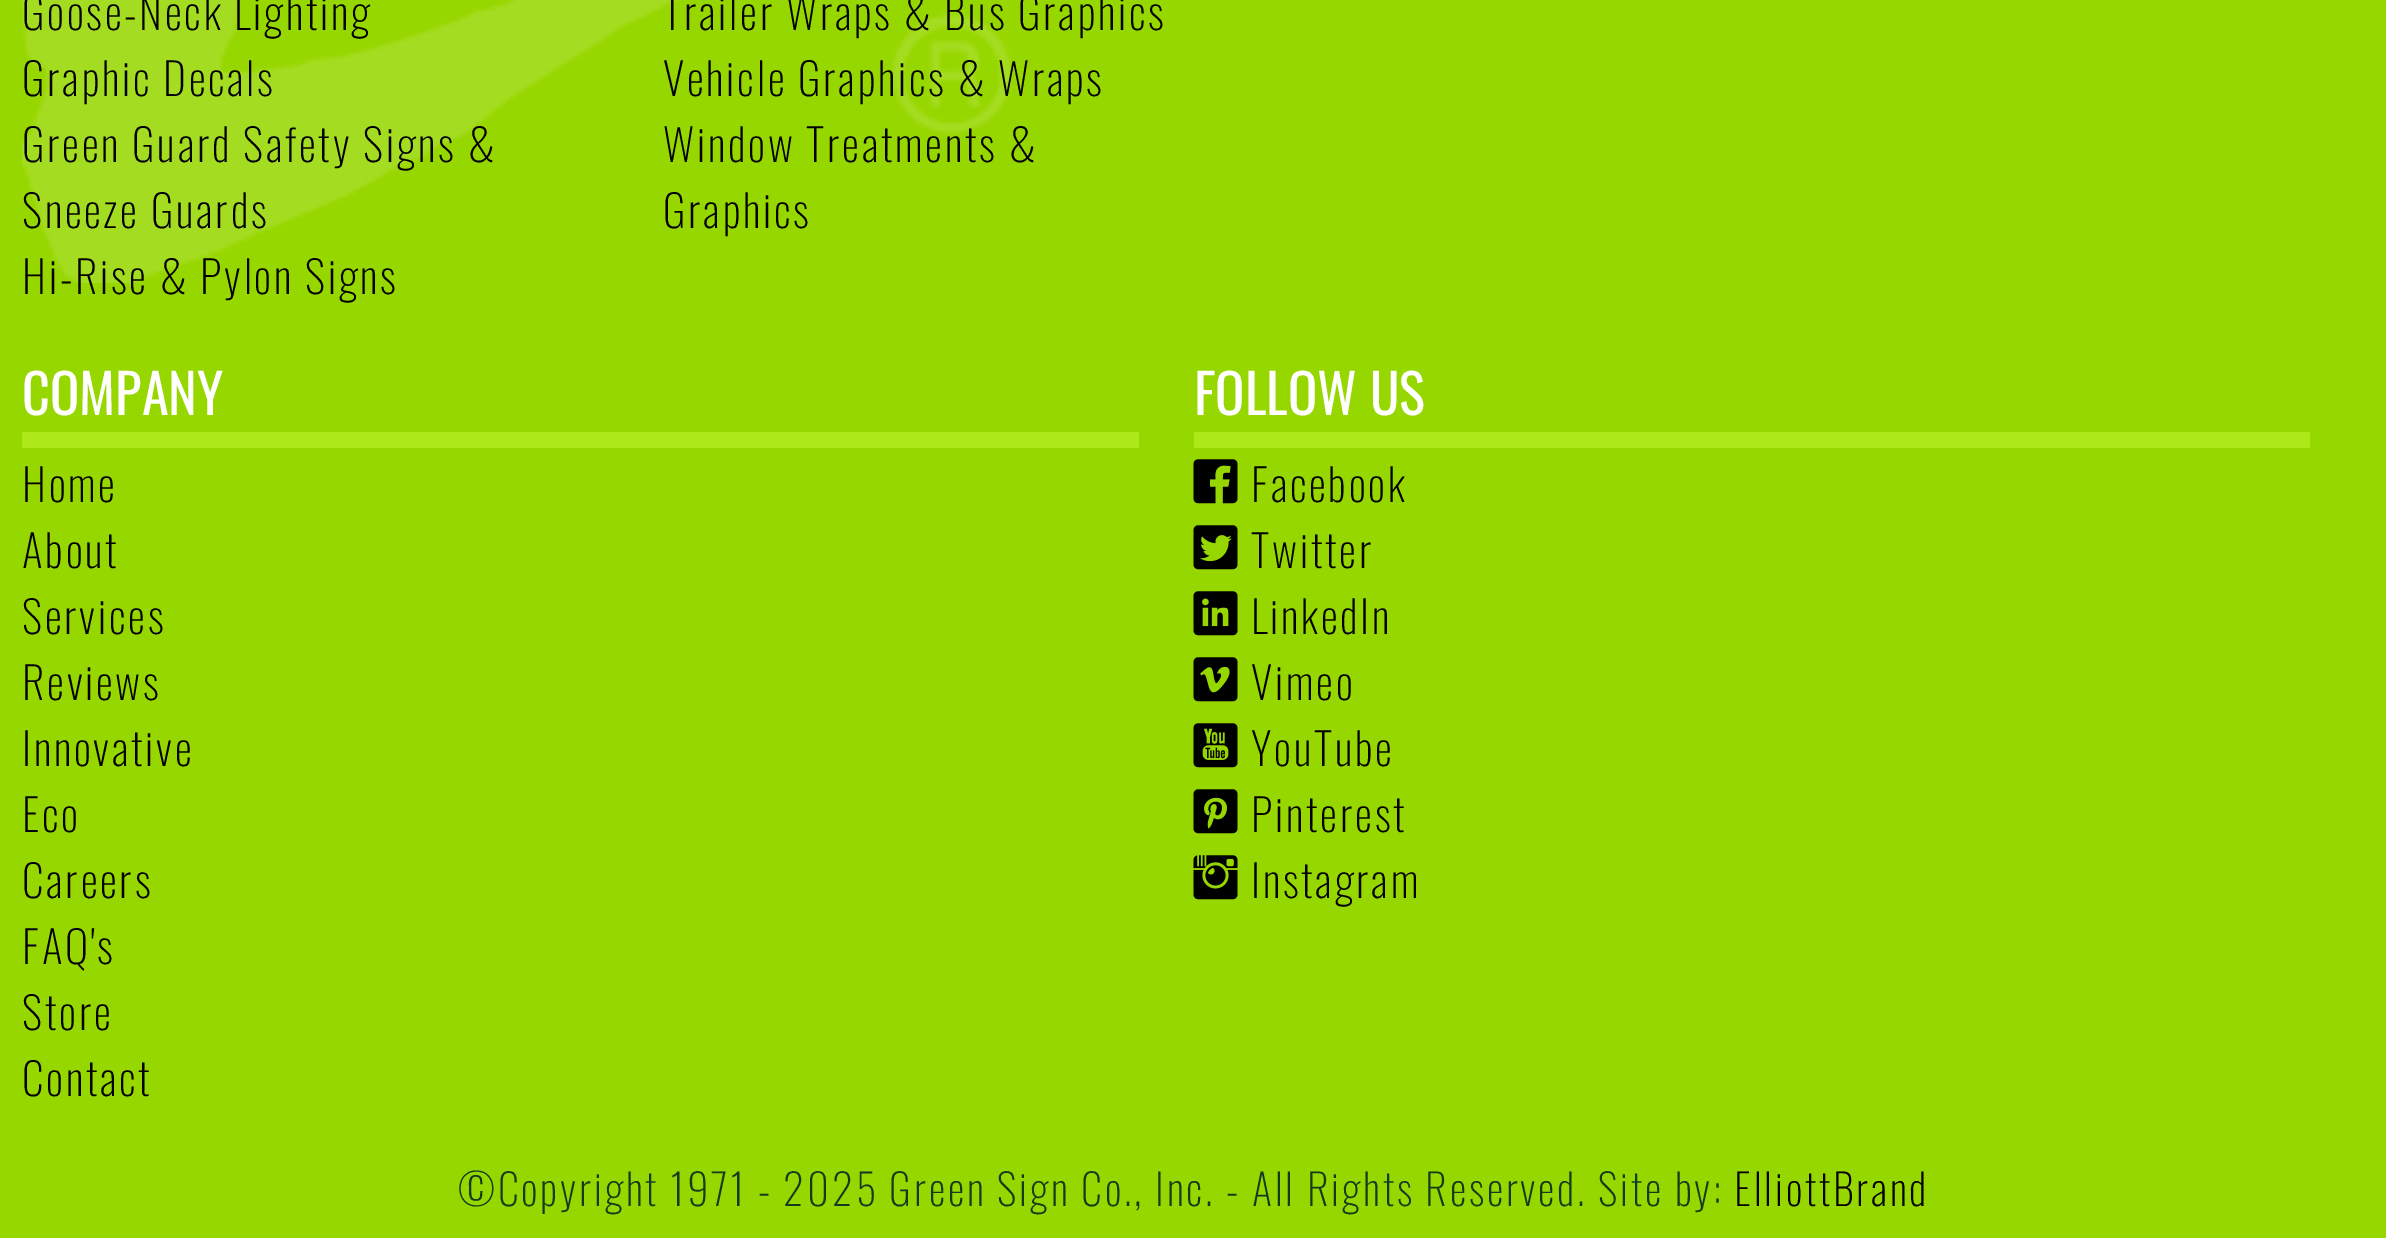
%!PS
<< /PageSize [2386 1238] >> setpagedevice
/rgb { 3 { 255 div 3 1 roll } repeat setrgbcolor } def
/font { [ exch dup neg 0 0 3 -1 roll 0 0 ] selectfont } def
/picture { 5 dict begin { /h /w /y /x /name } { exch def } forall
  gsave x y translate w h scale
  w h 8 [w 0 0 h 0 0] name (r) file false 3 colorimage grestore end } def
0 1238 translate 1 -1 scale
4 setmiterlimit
151 215 0 rgb
0 0 2386 1238 rectfill
(img/1.rgb) 22 0 989 283 picture
172 232 26 rgb
22 432 1117 16 rectfill
1194 432 1116 16 rectfill
(img/2.rgb) 1193 459 45 45 picture
(img/3.rgb) 1193 525 45 45 picture
(img/4.rgb) 1193 591 45 45 picture
(img/5.rgb) 1193 657 45 45 picture
(img/6.rgb) 1193 723 45 45 picture
(img/7.rgb) 1193 789 45 45 picture
(img/8.rgb) 1193 855 45 45 picture
/Oswald-ExtraLight 44 font
0 0 0 rgb
22 30 moveto 2.75 0 (Goose-Neck Lighting) ashow
663 30 moveto 2.75 0 (Trailer Wraps & Bus Graphics) ashow
22 96 moveto 2.75 0 (Graphic Decals) ashow
663 96 moveto 2.75 0 (Vehicle Graphics & Wraps) ashow
22 162 moveto 2.75 0 (Green Guard Safety Signs &) ashow
22 228 moveto 2.75 0 (Sneeze Guards) ashow
663 162 moveto 2.75 0 (Window Treatments &) ashow
663 228 moveto 2.75 0 (Graphics) ashow
22 294 moveto 2.75 0 (Hi-Rise & Pylon Signs) ashow
/Oswald-Regular 54.5 font
255 255 255 rgb
22 415 moveto (COMPANY) show
/Oswald-ExtraLight 44 font
0 0 0 rgb
22 502 moveto 2.75 0 (Home) ashow
22 568 moveto 2.75 0 (About) ashow
22 634 moveto 2.75 0 (Services) ashow
22 700 moveto 2.75 0 (Reviews) ashow
22 766 moveto 2.75 0 (Innovative) ashow
22 832 moveto 2.75 0 (Eco) ashow
22 898 moveto 2.75 0 (Careers) ashow
22 964 moveto 2.75 0 (FAQ's) ashow
22 1030 moveto 2.75 0 (Store) ashow
22 1096 moveto 2.75 0 (Contact) ashow
/Oswald-Regular 54.5 font
255 255 255 rgb
1194 415 moveto (FOLLOW US) show
/Oswald-ExtraLight 44 font
0 0 0 rgb
1251 502 moveto 2.75 0 (Facebook) ashow
1251 568 moveto 2.75 0 (Twitter) ashow
1251 634 moveto 2.75 0 (LinkedIn) ashow
1251 700 moveto 2.75 0 (Vimeo) ashow
1251 766 moveto 2.75 0 (YouTube) ashow
1251 832 moveto 2.75 0 (Pinterest) ashow
1251 898 moveto 2.75 0 (Instagram) ashow
/Oswald-ExtraLight 42.7 font
17 60 29 rgb
458 1206 moveto 2.75 0 (©Copyright 1971 - 2025 Green Sign Co., Inc. - All Rights Reserved. Site by:) ashow
0 0 0 rgb
1734 1206 moveto 2.75 0 (ElliottBrand) ashow
showpage
